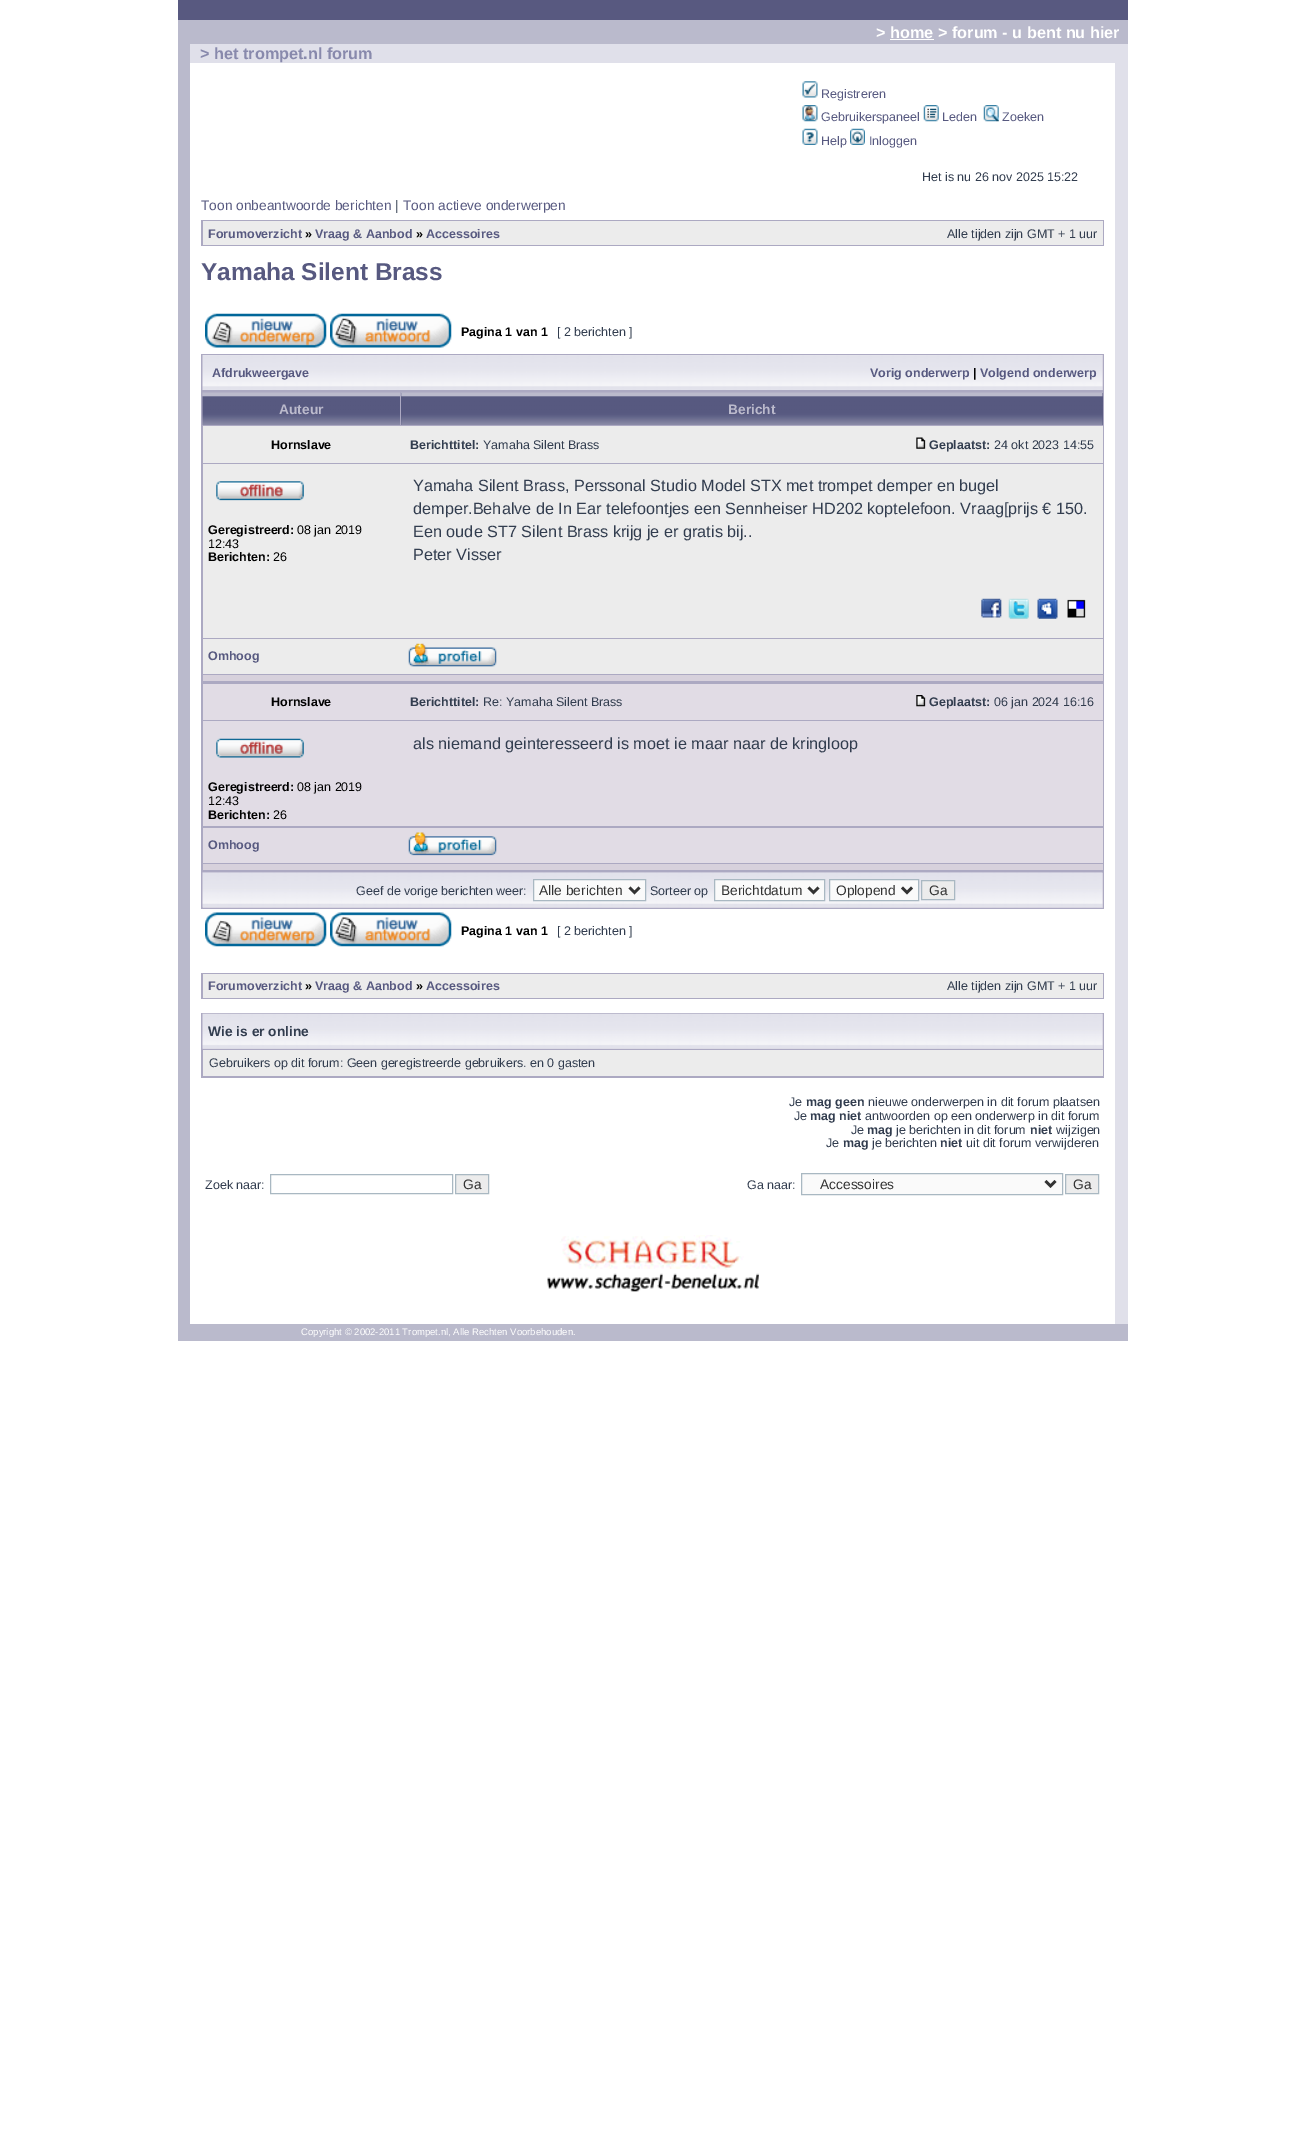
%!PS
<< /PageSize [1304 2152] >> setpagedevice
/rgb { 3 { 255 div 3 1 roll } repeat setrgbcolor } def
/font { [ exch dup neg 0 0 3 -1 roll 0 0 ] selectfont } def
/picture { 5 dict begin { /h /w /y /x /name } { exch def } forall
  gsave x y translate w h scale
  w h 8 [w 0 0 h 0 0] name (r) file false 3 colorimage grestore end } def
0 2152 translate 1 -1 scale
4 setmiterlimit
255 255 255 rgb
0 0 1304 2152 rectfill
[
  [178 0 950 20 88 89 128]
  [178 20 950 24 186 186 204]
  [890 39 44 1 255 255 255]
  [178 44 12 1280 186 186 204]
  [190 44 938 19 224 224 234]
] { aload pop rgb rectfill } forall
(img/1.rgb) 802 81 16 17 picture
(img/2.rgb) 802 105 16 17 picture
(img/3.rgb) 923 105 16 17 picture
(img/4.rgb) 983 105 16 17 picture
(img/5.rgb) 802 128 16 17 picture
(img/6.rgb) 850 128 15 17 picture
172 169 194 rgb
201 220 903 26 rectfill
236 236 236 rgb
203 221 900 24 rectfill
(img/7.rgb) 205 313 122 35 picture
(img/8.rgb) 330 313 122 35 picture
172 169 194 rgb
201 354 903 555 rectfill
204 199 215 rgb
1102 355 1 35 rectfill
(img/9.rgb) 202 355 901 35 picture
(img/10.rgb) 202 392 198 33 picture
87 89 128 rgb
401 393 702 32 rectfill
(img/11.rgb) 401 392 702 33 picture
236 236 236 rgb
203 426 900 37 rectfill
(img/12.rgb) 916 437 10 12 picture
203 464 900 174 rectfill
(img/13.rgb) 216 481 88 20 picture
(img/14.rgb) 981 598 21 20 picture
(img/15.rgb) 1008 598 21 21 picture
(img/16.rgb) 1037 598 21 21 picture
(img/17.rgb) 1067 599 19 19 picture
203 639 900 35 rectfill
(img/18.rgb) 408 643 89 24 picture
215 209 220 rgb
203 675 900 6 rectfill
225 220 229 rgb
203 684 900 36 rectfill
(img/19.rgb) 916 695 10 12 picture
203 721 900 105 rectfill
(img/20.rgb) 216 738 88 20 picture
203 828 900 35 rectfill
(img/21.rgb) 408 832 89 24 picture
215 209 220 rgb
203 864 900 6 rectfill
204 199 215 rgb
203 873 900 35 rectfill
(img/22.rgb) 202 872 901 36 picture
250 250 250 rgb
533.5 879.5 moveto 645.5 879.5 lineto 645.5 900.5 lineto 533.5 900.5 lineto closepath gsave fill grestore
169 184 194 rgb
stroke
51 51 51 rgb
2.5 setlinewidth
629.5 887.5 moveto 634.5 892.5 lineto 639.5 887.5 lineto stroke
250 250 250 rgb
714.5 879.5 moveto 824.5 879.5 lineto 824.5 900.5 lineto 714.5 900.5 lineto closepath gsave fill grestore
169 184 194 rgb
1 setlinewidth
stroke
51 51 51 rgb
2.5 setlinewidth
808.5 887.5 moveto 813.5 892.5 lineto 818.5 887.5 lineto stroke
250 250 250 rgb
829.5 879.5 moveto 918.5 879.5 lineto 918.5 900.5 lineto 829.5 900.5 lineto closepath gsave fill grestore
169 184 194 rgb
1 setlinewidth
stroke
51 51 51 rgb
2.5 setlinewidth
902 887.5 moveto 907 892.5 lineto 912 887.5 lineto stroke
236 236 236 rgb
921.5 880.5 moveto 954.5 880.5 lineto 954.5 899.5 lineto 921.5 899.5 lineto closepath gsave fill grestore
169 184 194 rgb
1 setlinewidth
stroke
(img/23.rgb) 205 912 122 35 picture
(img/24.rgb) 330 912 122 35 picture
[
  [201 973 903 26 172 169 194]
  [203 974 900 24 236 236 236]
  [201 1013 903 65 172 169 194]
  [203 1014 900 35 204 199 215]
] { aload pop rgb rectfill } forall
(img/25.rgb) 202 1013 901 36 picture
236 236 236 rgb
203 1050 900 26 rectfill
169 184 194 rgb
270.5 1174.5 182 19 rectstroke
236 236 236 rgb
455.5 1174.5 moveto 488.5 1174.5 lineto 488.5 1193.5 lineto 455.5 1193.5 lineto closepath gsave fill grestore
169 184 194 rgb
stroke
250 250 250 rgb
801.5 1173.5 moveto 1062.5 1173.5 lineto 1062.5 1194.5 lineto 801.5 1194.5 lineto closepath gsave fill grestore
169 184 194 rgb
stroke
51 51 51 rgb
2.5 setlinewidth
1045.5 1181 moveto 1050.5 1186 lineto 1055.5 1181 lineto stroke
236 236 236 rgb
1065.5 1174.5 moveto 1098.5 1174.5 lineto 1098.5 1193.5 lineto 1065.5 1193.5 lineto closepath gsave fill grestore
169 184 194 rgb
1 setlinewidth
stroke
(img/26.rgb) 547 1235 212 57 picture
224 224 234 rgb
1115 63 13 1261 rectfill
186 186 204 rgb
178 1324 950 17 rectfill
/LiberationSans-Bold 16.25 font
255 255 255 rgb
876 38 moveto (> home > forum - u bent nu hier) show
136 137 172 rgb
200 59 moveto (> het trompet.nl forum) show
/LiberationSans-Regular 12.5 font
87 89 128 rgb
[
  [(Registreren) 821 98]
  [(Gebruikerspaneel) 821 121]
  [(Leden) 942 121]
  [(Zoeken) 1002 121]
  [(Help) 821 145]
  [(Inloggen) 869 145]
] { aload pop moveto show } forall
50 61 79 rgb
922 181 moveto (Het is nu 26 nov 2025 15:22) show
/LiberationSans-Regular 13.75 font
87 89 128 rgb
201 210 moveto (Toon onbeantwoorde berichten) show
50 61 79 rgb
395 210 moveto (|) show
87 89 128 rgb
403 210 moveto (Toon actieve onderwerpen) show
/LiberationSans-Bold 12.5 font
208 238 moveto (Forumoverzicht) show
0 0 0 rgb
305 238 moveto (») show
87 89 128 rgb
315 238 moveto (Vraag & Aanbod) show
0 0 0 rgb
416 238 moveto (») show
87 89 128 rgb
426 238 moveto (Accessoires) show
/LiberationSans-Regular 12.5 font
50 61 79 rgb
947 238 moveto (Alle tijden zijn GMT + 1 uur) show
/LiberationSans-Bold 24.4 font
87 89 128 rgb
201 280 moveto (Yamaha Silent Brass) show
/LiberationSans-Bold 12.5 font
0 0 0 rgb
461 336 moveto (Pagina 1 van 1) show
/LiberationSans-Regular 12.5 font
50 61 79 rgb
557 336 moveto ([ 2 berichten ]) show
/LiberationSans-Bold 12.5 font
87 89 128 rgb
212 377 moveto (Afdrukweergave) show
870 377 moveto (Vorig onderwerp) show
0 0 0 rgb
973 377 moveto (|) show
87 89 128 rgb
980 377 moveto (Volgend onderwerp) show
/LiberationSans-Bold 13.75 font
187 186 204 rgb
279 414 moveto (Auteur) show
728 414 moveto (Bericht) show
/LiberationSans-Bold 12.5 font
0 0 0 rgb
271 449 moveto (Hornslave) show
50 61 79 rgb
410 449 moveto (Berichttitel:) show
/LiberationSans-Regular 12.5 font
483 449 moveto (Yamaha Silent Brass) show
/LiberationSans-Bold 12.5 font
929 449 moveto (Geplaatst:) show
/LiberationSans-Regular 12.5 font
994 449 moveto (24 okt 2023 14:55) show
/LiberationSans-Bold 12.5 font
0 0 0 rgb
208 534 moveto (Geregistreerd:) show
/LiberationSans-Regular 12.5 font
297 534 moveto (08 jan 2019) show
208 548 moveto (12:43) show
/LiberationSans-Bold 12.5 font
208 561 moveto (Berichten:) show
/LiberationSans-Regular 12.5 font
273 561 moveto (26) show
/LiberationSans-Regular 16.25 font
50 61 79 rgb
[
  [(Yamaha Silent Brass, Perssonal Studio Model STX met trompet demper en bugel) 413 491]
  [(demper.Behalve de In Ear telefoontjes een Sennheiser HD202 koptelefoon. Vraag[prijs € 150.) 413 514]
  [(Een oude ST7 Silent Brass krijg je er gratis bij..) 413 537]
  [(Peter Visser) 413 560]
] { aload pop moveto show } forall
/LiberationSans-Bold 12.5 font
87 89 128 rgb
208 660 moveto (Omhoog) show
0 0 0 rgb
271 706 moveto (Hornslave) show
50 61 79 rgb
410 706 moveto (Berichttitel:) show
/LiberationSans-Regular 12.5 font
483 706 moveto (Re: Yamaha Silent Brass) show
/LiberationSans-Bold 12.5 font
929 706 moveto (Geplaatst:) show
/LiberationSans-Regular 12.5 font
994 706 moveto (06 jan 2024 16:16) show
/LiberationSans-Regular 16.25 font
413 749 moveto (als niemand geinteresseerd is moet ie maar naar de kringloop) show
/LiberationSans-Bold 12.5 font
0 0 0 rgb
208 791 moveto (Geregistreerd:) show
/LiberationSans-Regular 12.5 font
297 791 moveto (08 jan 2019) show
208 805 moveto (12:43) show
/LiberationSans-Bold 12.5 font
208 819 moveto (Berichten:) show
/LiberationSans-Regular 12.5 font
273 819 moveto (26) show
/LiberationSans-Bold 12.5 font
87 89 128 rgb
208 849 moveto (Omhoog) show
/LiberationSans-Regular 12.5 font
50 61 79 rgb
356 895 moveto (Geef de vorige berichten weer:) show
/LiberationSans-Regular 13.75 font
51 51 51 rgb
539 895 moveto (Alle berichten) show
/LiberationSans-Regular 12.5 font
50 61 79 rgb
650 895 moveto (Sorteer op) show
/LiberationSans-Regular 13.75 font
51 51 51 rgb
[
  [(Berichtdatum) 721 895]
  [(Oplopend) 836 895]
  [(Ga) 929 895]
] { aload pop moveto show } forall
/LiberationSans-Bold 12.5 font
0 0 0 rgb
461 935 moveto (Pagina 1 van 1) show
/LiberationSans-Regular 12.5 font
50 61 79 rgb
557 935 moveto ([ 2 berichten ]) show
/LiberationSans-Bold 12.5 font
87 89 128 rgb
208 990 moveto (Forumoverzicht) show
0 0 0 rgb
305 990 moveto (») show
87 89 128 rgb
315 990 moveto (Vraag & Aanbod) show
0 0 0 rgb
416 990 moveto (») show
87 89 128 rgb
426 990 moveto (Accessoires) show
/LiberationSans-Regular 12.5 font
50 61 79 rgb
947 990 moveto (Alle tijden zijn GMT + 1 uur) show
/LiberationSans-Bold 13.75 font
208 1036 moveto (Wie is er online) show
/LiberationSans-Regular 12.5 font
209 1067 moveto (Gebruikers op dit forum: Geen geregistreerde gebruikers. en 0 gasten) show
789 1106 moveto (Je) show
/LiberationSans-Bold 12.5 font
806 1106 moveto (mag geen) show
/LiberationSans-Regular 12.5 font
868 1106 moveto (nieuwe onderwerpen in dit forum plaatsen) show
794 1120 moveto (Je) show
/LiberationSans-Bold 12.5 font
810 1120 moveto (mag niet) show
/LiberationSans-Regular 12.5 font
865 1120 moveto (antwoorden op een onderwerp in dit forum) show
851 1134 moveto (Je) show
/LiberationSans-Bold 12.5 font
867 1134 moveto (mag) show
/LiberationSans-Regular 12.5 font
896 1134 moveto (je berichten in dit forum) show
/LiberationSans-Bold 12.5 font
1030 1134 moveto (niet) show
/LiberationSans-Regular 12.5 font
1056 1134 moveto (wijzigen) show
826 1147 moveto (Je) show
/LiberationSans-Bold 12.5 font
843 1147 moveto (mag) show
/LiberationSans-Regular 12.5 font
872 1147 moveto (je berichten) show
/LiberationSans-Bold 12.5 font
940 1147 moveto (niet) show
/LiberationSans-Regular 12.5 font
966 1147 moveto (uit dit forum verwijderen) show
205 1189 moveto (Zoek naar:) show
/LiberationSans-Regular 13.75 font
51 51 51 rgb
463 1189 moveto (Ga) show
/LiberationSans-Regular 12.5 font
50 61 79 rgb
747 1189 moveto (Ga naar:) show
/LiberationSans-Regular 13.75 font
51 51 51 rgb
820 1189 moveto (Accessoires) show
1073 1189 moveto (Ga) show
/LiberationSans-Regular 9.55 font
255 255 255 rgb
301 1335 moveto (Copyright © 2002-2011 Trompet.nl, Alle Rechten Voorbehouden.) show
showpage
